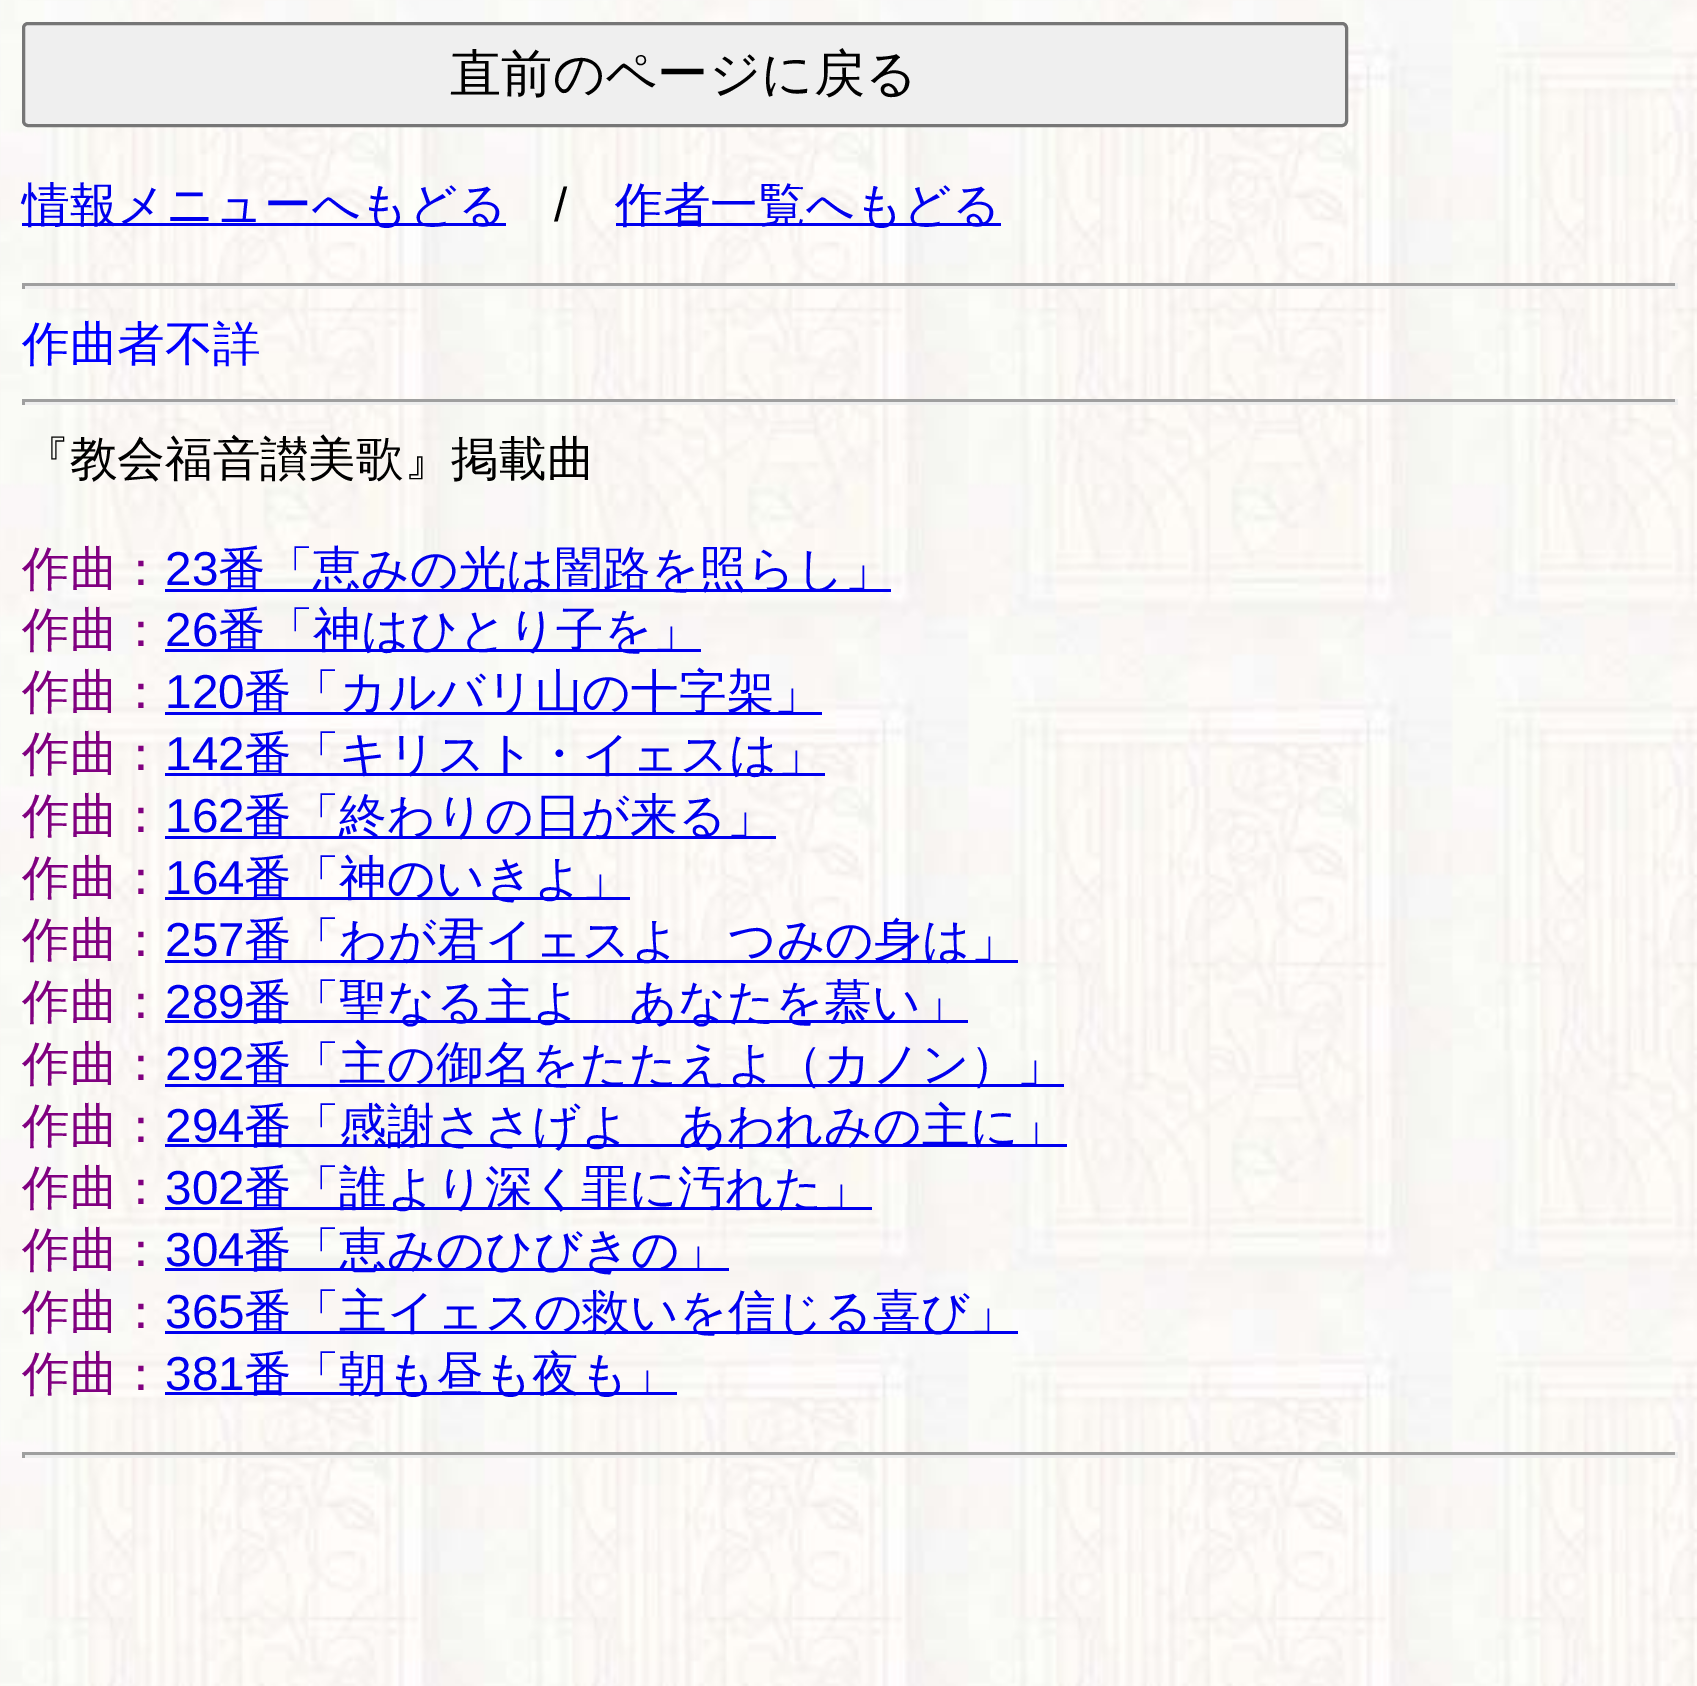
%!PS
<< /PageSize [1697 1686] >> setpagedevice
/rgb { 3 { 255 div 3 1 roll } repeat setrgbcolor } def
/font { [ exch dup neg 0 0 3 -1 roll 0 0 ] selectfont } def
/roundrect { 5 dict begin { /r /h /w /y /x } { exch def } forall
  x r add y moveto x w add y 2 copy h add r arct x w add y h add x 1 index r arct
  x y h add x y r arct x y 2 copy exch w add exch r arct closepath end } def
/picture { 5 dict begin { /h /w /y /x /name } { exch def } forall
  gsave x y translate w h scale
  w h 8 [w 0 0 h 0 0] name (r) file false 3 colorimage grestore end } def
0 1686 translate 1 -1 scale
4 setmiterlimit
255 255 255 rgb
0 0 1697 1686 rectfill
(img/1.rgb) 0 0 1697 1686 picture
239 239 239 rgb
23.5 23.5 1323 102 4.5 roundrect gsave fill grestore
118 118 118 rgb
3 setlinewidth
stroke
[
  [22 223 484 3 0 0 238]
  [616 223 385 3 0 0 238]
  [22 283 1656 3 159 159 159]
  [1675 283 3 6 238 238 238]
  [22 286 1656 3 238 238 238]
  [22 283 3 6 159 159 159]
  [22 399 1656 3 159 159 159]
  [1675 399 3 6 238 238 238]
  [22 402 1656 3 238 238 238]
  [22 399 3 6 159 159 159]
  [165 589 726 3 0 0 238]
  [165 649 536 3 0 0 238]
  [165 712 657 3 0 0 238]
  [165 773 660 3 0 0 238]
  [165 836 611 3 0 0 238]
  [165 897 465 3 0 0 238]
  [165 960 853 3 0 0 238]
  [165 1020 803 3 0 0 238]
  [165 1084 899 3 0 0 238]
  [165 1144 902 3 0 0 238]
  [165 1207 707 3 0 0 238]
  [165 1268 564 3 0 0 238]
  [165 1331 853 3 0 0 238]
  [165 1392 512 3 0 0 238]
  [22 1452 1656 3 159 159 159]
  [1675 1452 3 6 238 238 238]
  [22 1455 1656 3 238 238 238]
  [22 1452 3 6 159 159 159]
] { aload pop rgb rectfill } forall
/WenQuanYiZenHei-Medium 51.25 font
0 0 0 rgb
450 91 moveto (直前のページに戻る) show
/WenQuanYiZenHei-Medium 47.7 font
0 0 238 rgb
22 221 moveto (情報メニューへもどる) show
/LiberationSans-Regular 47.7 font
0 0 0 rgb
554 221 moveto (/) show
/WenQuanYiZenHei-Medium 47.7 font
0 0 238 rgb
615 221 moveto (作者一覧へもどる) show
0 0 255 rgb
22 360 moveto (作曲者不詳) show
0 0 0 rgb
22 475 moveto (『教会福音讃美歌』掲載曲) show
128 0 128 rgb
22 585 moveto (作曲：) show
/LiberationSans-Regular 47.7 font
0 0 238 rgb
165 585 moveto (23) show
/WenQuanYiZenHei-Medium 47.7 font
218 585 moveto (番「恵みの光は闇路を照らし」) show
128 0 128 rgb
22 646 moveto (作曲：) show
/LiberationSans-Regular 47.7 font
0 0 238 rgb
165 646 moveto (26) show
/WenQuanYiZenHei-Medium 47.7 font
218 646 moveto (番「神はひとり子を」) show
128 0 128 rgb
22 708 moveto (作曲：) show
/LiberationSans-Regular 47.7 font
0 0 238 rgb
165 708 moveto (120) show
/WenQuanYiZenHei-Medium 47.7 font
244 708 moveto (番「カルバリ山の十字架」) show
128 0 128 rgb
22 770 moveto (作曲：) show
/LiberationSans-Regular 47.7 font
0 0 238 rgb
165 770 moveto (142) show
/WenQuanYiZenHei-Medium 47.7 font
244 770 moveto (番「キリスト・イェスは」) show
128 0 128 rgb
22 832 moveto (作曲：) show
/LiberationSans-Regular 47.7 font
0 0 238 rgb
165 832 moveto (162) show
/WenQuanYiZenHei-Medium 47.7 font
244 832 moveto (番「終わりの日が来る」) show
128 0 128 rgb
22 894 moveto (作曲：) show
/LiberationSans-Regular 47.7 font
0 0 238 rgb
165 894 moveto (164) show
/WenQuanYiZenHei-Medium 47.7 font
244 894 moveto (番「神のいきよ」) show
128 0 128 rgb
22 956 moveto (作曲：) show
/LiberationSans-Regular 47.7 font
0 0 238 rgb
165 956 moveto (257) show
/WenQuanYiZenHei-Medium 47.7 font
244 956 moveto (番「わが君イェスよ　つみの身は」) show
128 0 128 rgb
22 1018 moveto (作曲：) show
/LiberationSans-Regular 47.7 font
0 0 238 rgb
165 1018 moveto (289) show
/WenQuanYiZenHei-Medium 47.7 font
244 1018 moveto (番「聖なる主よ　あなたを慕い」) show
128 0 128 rgb
22 1080 moveto (作曲：) show
/LiberationSans-Regular 47.7 font
0 0 238 rgb
165 1080 moveto (292) show
/WenQuanYiZenHei-Medium 47.7 font
244 1080 moveto (番「主の御名をたたえよ（カノン）」) show
128 0 128 rgb
22 1142 moveto (作曲：) show
/LiberationSans-Regular 47.7 font
0 0 238 rgb
165 1142 moveto (294) show
/WenQuanYiZenHei-Medium 47.7 font
244 1142 moveto (番「感謝ささげよ　あわれみの主に」) show
128 0 128 rgb
22 1204 moveto (作曲：) show
/LiberationSans-Regular 47.7 font
0 0 238 rgb
165 1204 moveto (302) show
/WenQuanYiZenHei-Medium 47.7 font
244 1204 moveto (番「誰より深く罪に汚れた」) show
128 0 128 rgb
22 1266 moveto (作曲：) show
/LiberationSans-Regular 47.7 font
0 0 238 rgb
165 1266 moveto (304) show
/WenQuanYiZenHei-Medium 47.7 font
244 1266 moveto (番「恵みのひびきの」) show
128 0 128 rgb
22 1328 moveto (作曲：) show
/LiberationSans-Regular 47.7 font
0 0 238 rgb
165 1328 moveto (365) show
/WenQuanYiZenHei-Medium 47.7 font
244 1328 moveto (番「主イェスの救いを信じる喜び」) show
128 0 128 rgb
22 1390 moveto (作曲：) show
/LiberationSans-Regular 47.7 font
0 0 238 rgb
165 1390 moveto (381) show
/WenQuanYiZenHei-Medium 47.7 font
244 1390 moveto (番「朝も昼も夜も」) show
showpage
